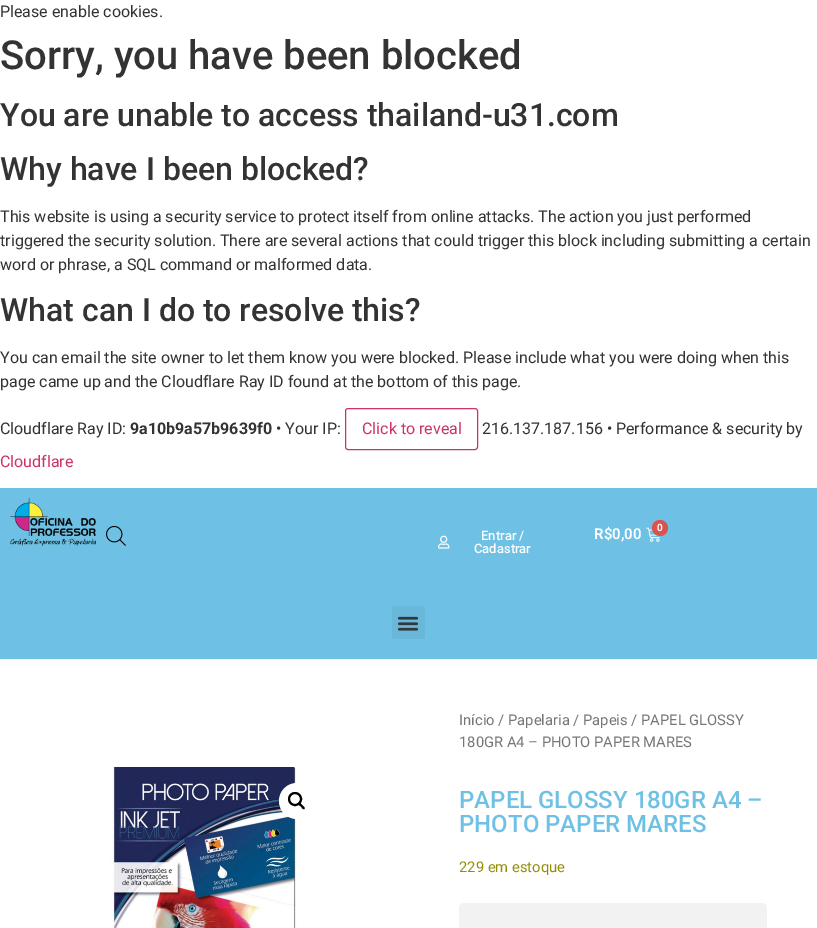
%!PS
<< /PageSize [817 928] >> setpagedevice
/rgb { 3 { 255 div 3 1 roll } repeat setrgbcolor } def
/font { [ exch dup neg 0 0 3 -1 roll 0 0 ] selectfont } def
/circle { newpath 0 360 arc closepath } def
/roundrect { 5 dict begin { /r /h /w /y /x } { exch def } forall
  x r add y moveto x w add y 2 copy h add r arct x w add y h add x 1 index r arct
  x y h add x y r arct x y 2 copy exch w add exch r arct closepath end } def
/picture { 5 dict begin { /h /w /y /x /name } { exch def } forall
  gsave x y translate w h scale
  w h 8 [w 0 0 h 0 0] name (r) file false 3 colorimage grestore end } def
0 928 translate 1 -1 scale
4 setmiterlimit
255 255 255 rgb
0 0 817 928 rectfill
204 51 102 rgb
345.5 408.5 132 41 2.5 roundrect stroke
110 193 228 rgb
0 488 817 171 rectfill
(img/1.rgb) 10 498 86 48 picture
(img/2.rgb) 106 526 20 20 picture
(img/3.rgb) 438 535 12 14 picture
(img/4.rgb) 646 527 14 15 picture
217 83 79 rgb
660 528 8 circle fill
105 183 217 rgb
392 606 33 33 3 roundrect fill
(img/5.rgb) 397 616 22 15 picture
(img/6.rgb) 110 767 187 161 picture
255 255 255 rgb
297 801 18 circle fill
0 0 0 rgb
2 setlinewidth
295 799 6 circle stroke
298.5 803 moveto 300 802 301.5 804.5 302 805 curveto 303 806 305.5 807.5 304.5 809 curveto 303 810 301.5 807.5 301 806.5 curveto 300 806 297.5 804.5 298.5 803 curveto closepath fill
242 242 242 rgb
459 903 308 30 5 roundrect fill
/Roboto-Regular 16 font
51 51 51 rgb
0 17 moveto (Please enable cookies.) show
/Roboto-Medium 40 font
0 69 moveto (Sorry, you have been blocked) show
/Roboto-Medium 32 font
0 126 moveto (You are unable to access thailand-u31.com) show
0 180 moveto (Why have I been blocked?) show
/Roboto-Regular 16 font
[
  [(This website is using a security service to protect itself from online attacks. The action you just performed) 0 222]
  [(triggered the security solution. There are several actions that could trigger this block including submitting a certain) 0 246]
  [(word or phrase, a SQL command or malformed data.) 0 270]
] { aload pop moveto show } forall
/Roboto-Medium 32 font
0 321 moveto (What can I do to resolve this?) show
/Roboto-Regular 16 font
[
  [(You can email the site owner to let them know you were blocked. Please include what you were doing when this) 0 363]
  [(page came up and the Cloudflare Ray ID found at the bottom of this page.) 0 387]
  [(Cloudflare Ray ID:) 0 434]
] { aload pop moveto show } forall
/Roboto-Bold 16 font
130 434 moveto (9a10b9a57b9639f0) show
/Roboto-Regular 16 font
276 434 moveto (• Your IP:) show
204 51 102 rgb
362 434 moveto (Click to reveal) show
51 51 51 rgb
482 434 moveto (216.137.187.156 • Performance & security by) show
204 51 102 rgb
0 467 moveto (Cloudflare) show
/Roboto-Medium 13 font
255 255 255 rgb
481 540 moveto (Entrar /) show
474 553 moveto (Cadastrar) show
/Roboto-SemiBold 15 font
594 539 moveto (R$0,00) show
/Roboto-SemiBold 10 font
657 531 moveto (0) show
/Roboto-Regular 14.75 font
118 118 118 rgb
459 725 moveto (Início / Papelaria / Papeis / PAPEL GLOSSY) show
459 747 moveto (180GR A4 – PHOTO PAPER MARES) show
/Roboto-Medium 24 font
110 193 228 rgb
459 808 moveto (PAPEL GLOSSY 180GR A4 –) show
459 832 moveto (PHOTO PAPER MARES) show
/Roboto-Regular 14.75 font
149 142 9 rgb
459 872 moveto (229 em estoque) show
showpage
